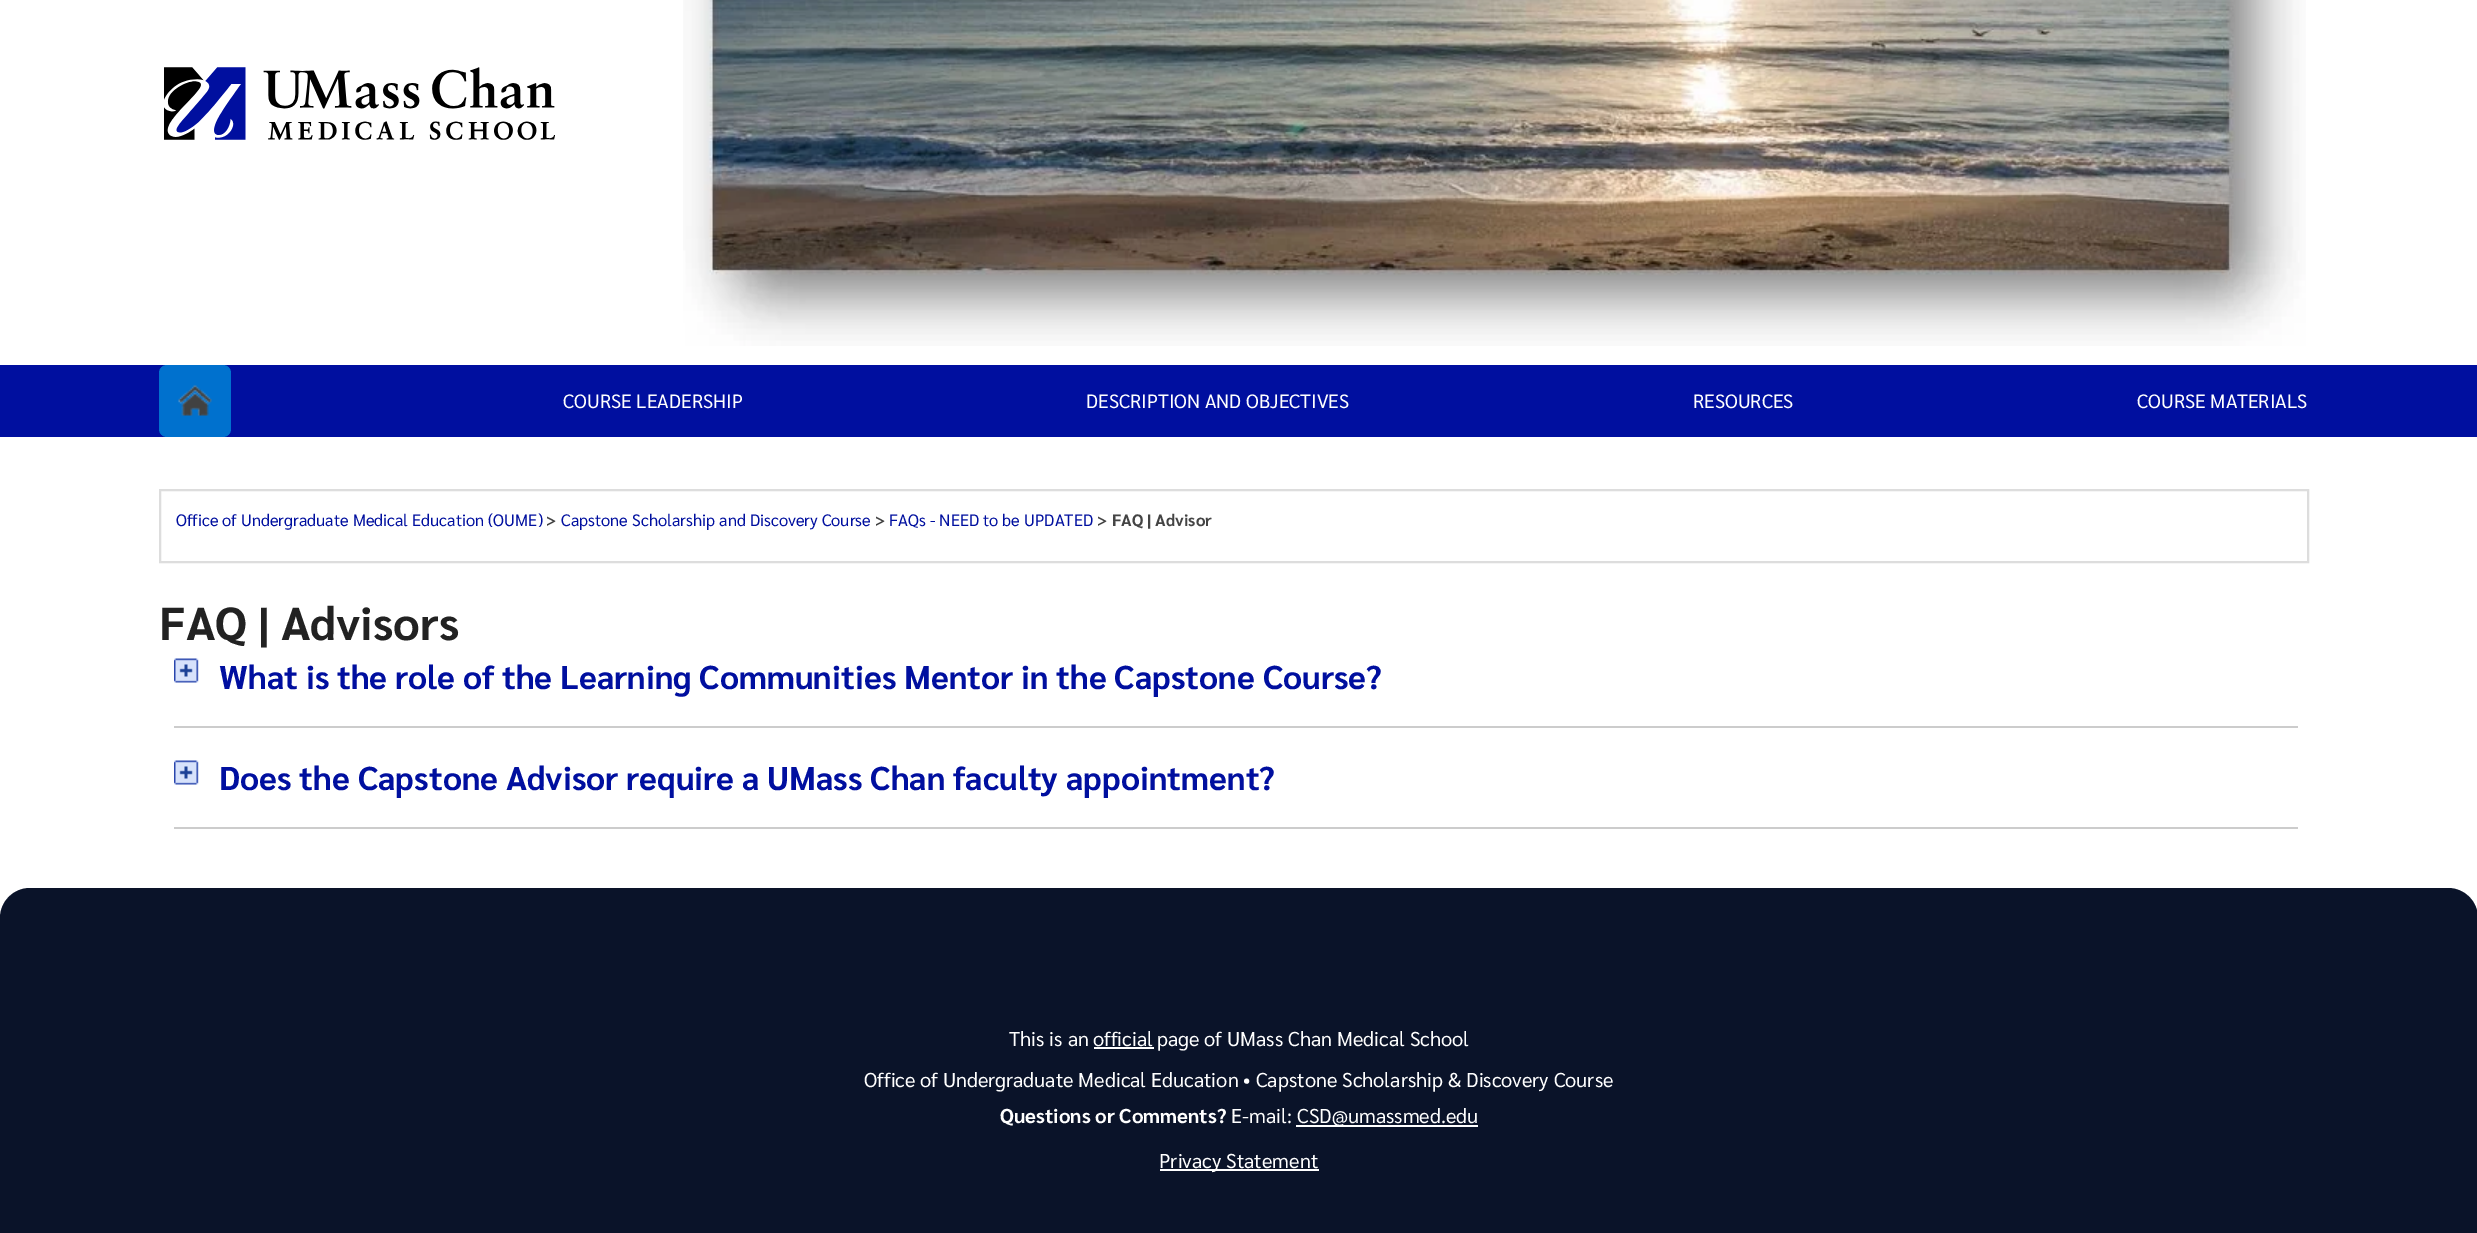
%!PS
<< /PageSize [2477 1233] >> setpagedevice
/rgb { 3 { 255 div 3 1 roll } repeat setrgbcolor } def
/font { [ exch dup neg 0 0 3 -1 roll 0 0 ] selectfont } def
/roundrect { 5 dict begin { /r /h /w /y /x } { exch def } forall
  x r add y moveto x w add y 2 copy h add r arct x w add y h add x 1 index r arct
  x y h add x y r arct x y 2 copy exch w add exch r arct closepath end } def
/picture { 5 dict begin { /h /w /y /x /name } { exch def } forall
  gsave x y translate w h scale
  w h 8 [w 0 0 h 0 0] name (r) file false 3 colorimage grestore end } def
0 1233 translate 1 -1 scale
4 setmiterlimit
255 255 255 rgb
0 0 2477 1233 rectfill
(img/1.rgb) 164 67 391 73 picture
(img/2.rgb) 683 0 1623 346 picture
0 15 159 rgb
0 365 2477 72 rectfill
0 113 206 rgb
159 365 72 72 8 roundrect fill
(img/3.rgb) 178 385 34 31 picture
221 221 221 rgb
2 setlinewidth
160 490 2148 72 rectstroke
204 204 204 rgb
174 726 2124 2 rectfill
(img/4.rgb) 174 658 25 25 picture
174 827 2124 2 rectfill
(img/4.rgb) 174 760 25 25 picture
10 19 41 rgb
30 888 moveto 2448 888 lineto 2464.5 888 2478 901.5 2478 918 curveto 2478 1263 lineto 0 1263 lineto 0 918 lineto 0 901.5 13.5 888 30 888 curveto closepath fill
[
  [1094 1047 60 2 255 255 255]
  [1296 1125 182 2 255 255 255]
  [1160 1169 159 2 255 255 255]
] { aload pop rgb rectfill } forall
/Sarabun-Regular 19.25 font
[
  [(COURSE LEADERSHIP) 563 408]
  [(DESCRIPTION AND OBJECTIVES) 1086 408]
  [(RESOURCES) 1693 408]
  [(COURSE MATERIALS) 2137 408]
] { aload pop moveto show } forall
/Sarabun-Regular 16.5 font
0 15 159 rgb
176 526 moveto (Office of Undergraduate Medical Education \(OUME\)) show
/Sarabun-Bold 16.5 font
68 68 68 rgb
546 526 moveto (>) show
/Sarabun-Regular 16.5 font
0 15 159 rgb
561 526 moveto (Capstone Scholarship and Discovery Course) show
/Sarabun-Bold 16.5 font
68 68 68 rgb
875 526 moveto (>) show
/Sarabun-Regular 16.5 font
0 15 159 rgb
889 526 moveto (FAQs - NEED to be UPDATED) show
/Sarabun-Bold 16.5 font
68 68 68 rgb
1097 526 moveto (>) show
1112 526 moveto (FAQ | Advisor) show
/Sarabun-Bold 46.25 font
34 34 34 rgb
159 640 moveto (FAQ | Advisors) show
/Sarabun-Bold 33 font
0 15 159 rgb
219 689 moveto (What is the role of the Learning Communities Mentor in the Capstone Course?) show
219 790 moveto (Does the Capstone Advisor require a UMass Chan faculty appointment?) show
/Sarabun-Regular 20.05 font
255 255 255 rgb
[
  [(This is an) 1009 1046]
  [(official) 1093 1046]
  [(page of UMass Chan Medical School) 1157 1046]
  [(Office of Undergraduate Medical Education • Capstone Scholarship & Discovery Course) 864 1087]
] { aload pop moveto show } forall
/Sarabun-Bold 20.05 font
1000 1123 moveto (Questions or Comments?) show
/Sarabun-Regular 20.05 font
[
  [(E-mail:) 1231 1123]
  [(CSD@umassmed.edu) 1297 1123]
  [(Privacy Statement) 1159 1168]
] { aload pop moveto show } forall
showpage
